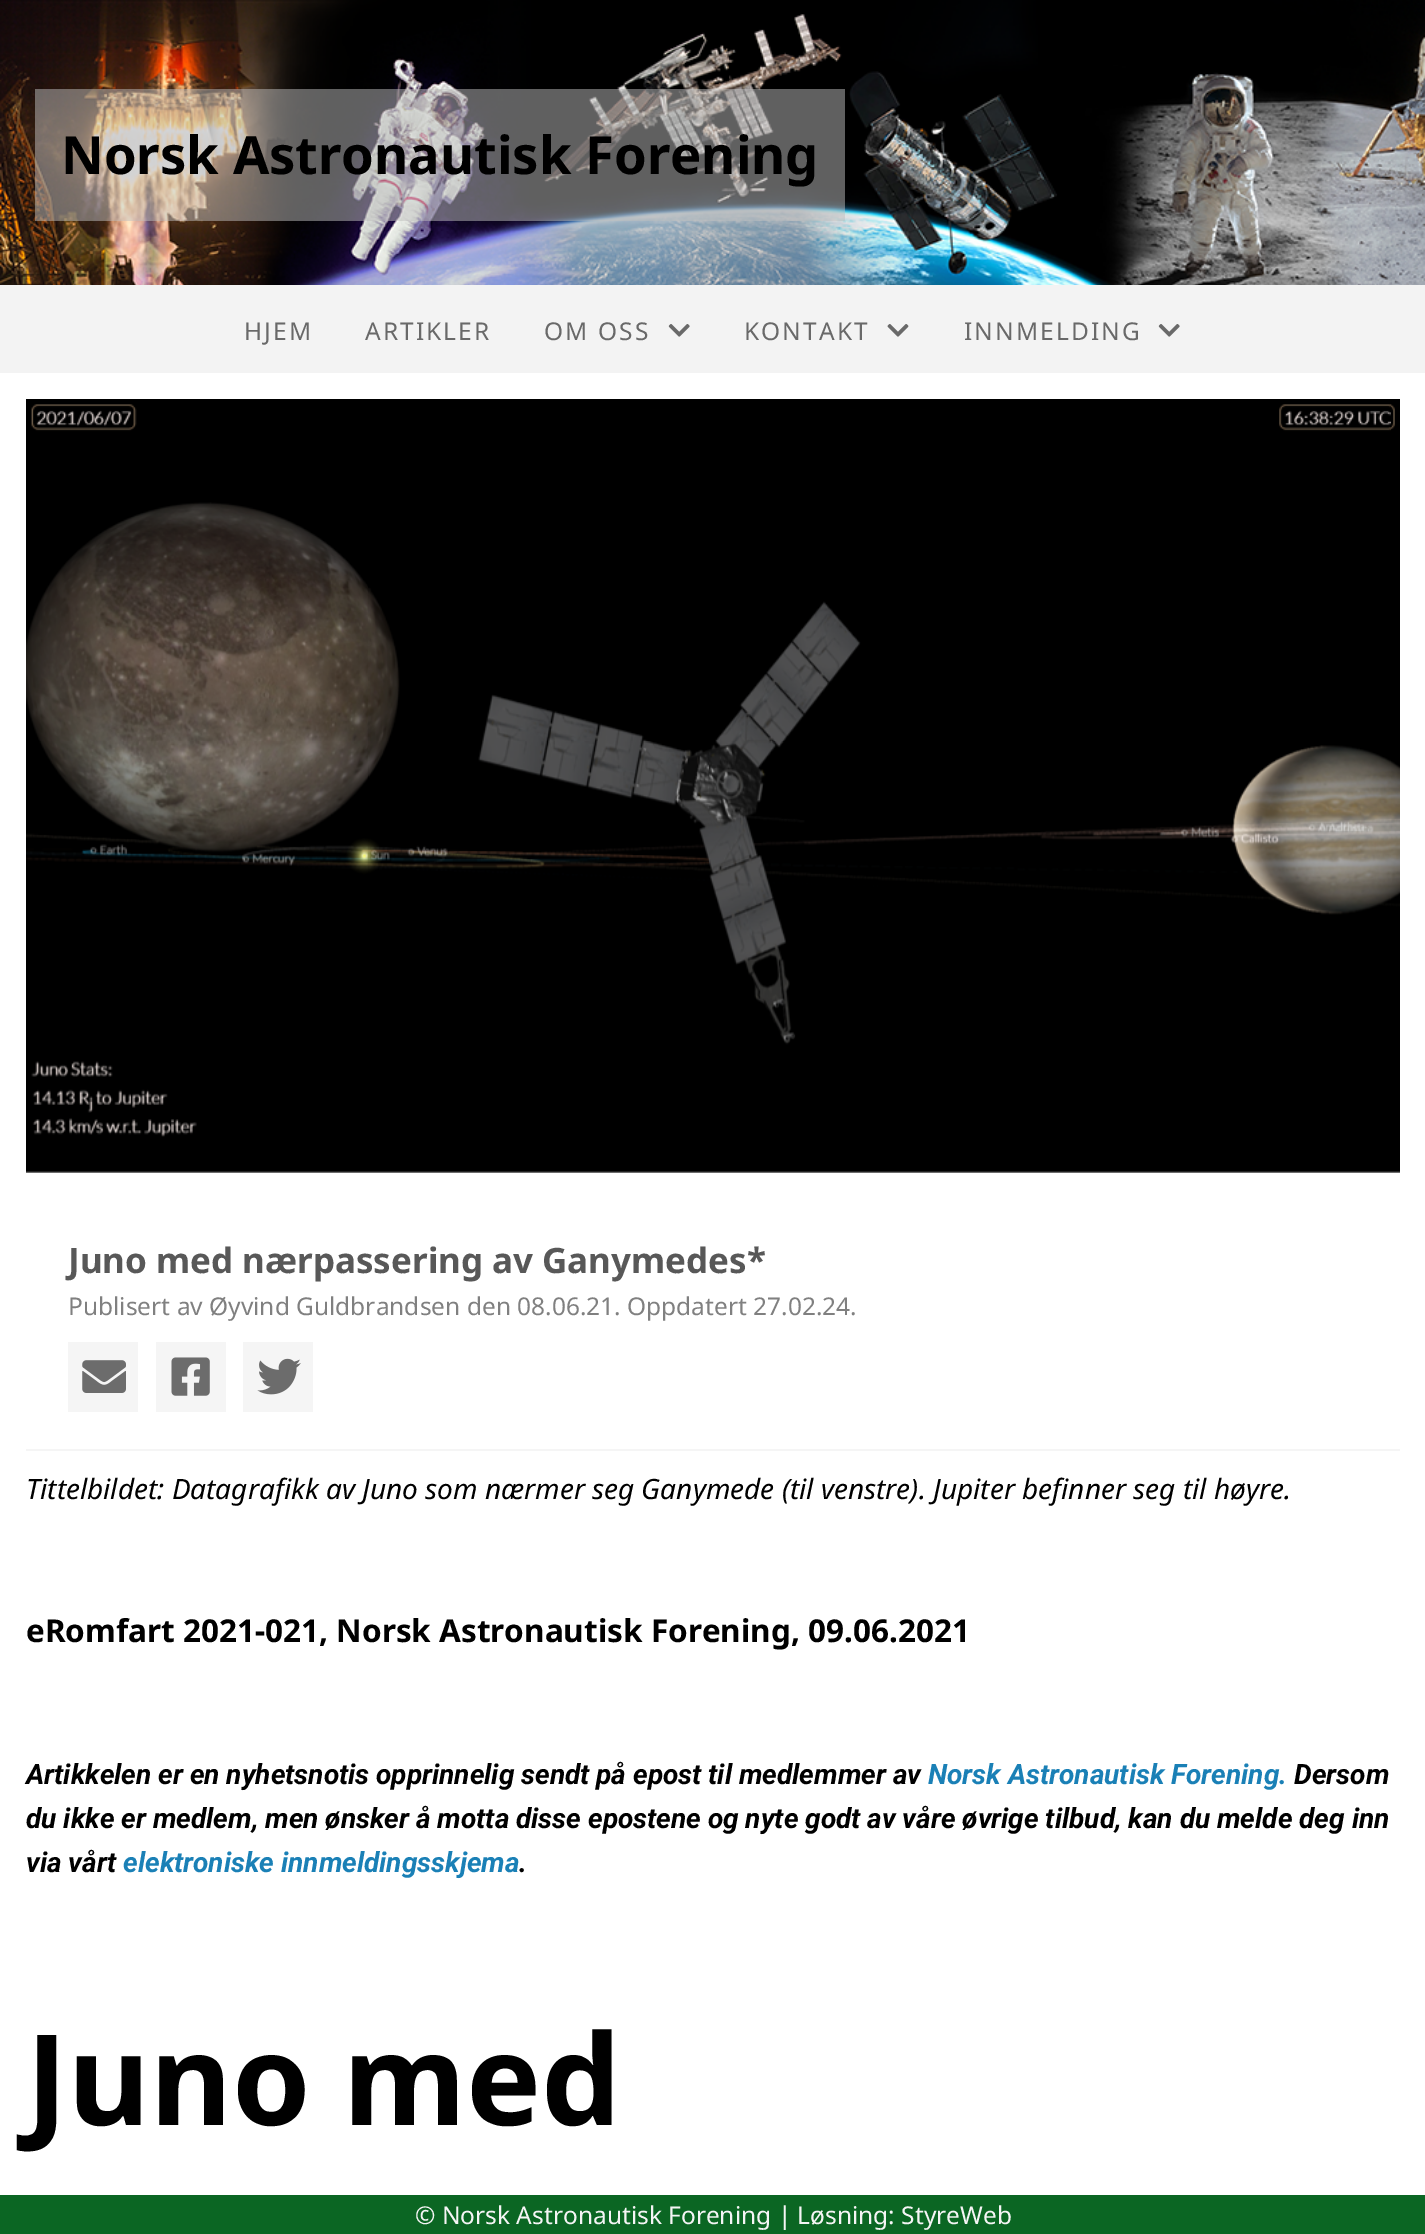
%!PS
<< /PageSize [1425 2234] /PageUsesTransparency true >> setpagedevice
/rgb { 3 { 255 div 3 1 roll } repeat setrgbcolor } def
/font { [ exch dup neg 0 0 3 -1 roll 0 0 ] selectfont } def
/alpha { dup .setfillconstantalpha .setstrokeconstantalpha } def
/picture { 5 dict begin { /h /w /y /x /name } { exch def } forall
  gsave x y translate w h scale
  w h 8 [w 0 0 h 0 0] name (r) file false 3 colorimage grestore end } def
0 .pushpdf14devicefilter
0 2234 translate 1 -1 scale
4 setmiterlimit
255 255 255 rgb
0 0 1425 2234 rectfill
(img/1.rgb) 0 0 1425 285 picture
0.5 alpha
191 191 191 rgb
35 89 810 132 rectfill
1 alpha
243 243 243 rgb
0 285 1425 88 rectfill
(img/2.rgb) 668 324 22 13 picture
(img/3.rgb) 887 324 22 13 picture
(img/2.rgb) 1158 324 22 13 picture
(img/4.rgb) 26 399 1374 774 picture
245 245 245 rgb
26 1449 1374 2 rectfill
68 1342 70 70 rectfill
(img/5.rgb) 82 1360 44 33 picture
156 1342 70 70 rectfill
(img/6.rgb) 171 1357 39 39 picture
243 1342 70 70 rectfill
(img/7.rgb) 257 1358 44 37 picture
11 102 35 rgb
0 2195 1425 39 rectfill
/NotoSans-Bold 52.5 font
0 0 0 rgb
61 174 moveto (Norsk Astronautisk Forening) show
/NotoSans-Regular 24.5 font
105 105 105 rgb
244 340 moveto 2.1 0 (HJEM) ashow
365 340 moveto 2.1 0 (ARTIKLER) ashow
544 340 moveto 2.1 0 (OM OSS) ashow
744 340 moveto 2.1 0 (KONTAKT) ashow
964 340 moveto 2.1 0 (INNMELDING) ashow
/NotoSans-Bold 35 font
88 88 88 rgb
68 1273 moveto (Juno med nærpassering av Ganymedes*) show
/NotoSans-Regular 24.5 font
128 128 128 rgb
68 1315 moveto (Publisert av Øyvind Guldbrandsen den 08.06.21. Oppdatert 27.02.24.) show
/NotoSans-Italic 28 font
0 0 0 rgb
26 1499 moveto (Tittelbildet: Datagrafikk av Juno som nærmer seg Ganymede \(til venstre\). Jupiter befinner seg til høyre.) show
/NotoSans-Bold 31.5 font
26 1642 moveto (eRomfart 2021-021, Norsk Astronautisk Forening, 09.06.2021) show
/Roboto-BoldItalic 28 font
26 1784 moveto (Artikkelen er en nyhetsnotis opprinnelig sendt på epost til medlemmer av) show
26 128 182 rgb
928 1784 moveto (Norsk Astronautisk Forening.) show
0 0 0 rgb
[
  [(Dersom) 1294 1784]
  [(du ikke er medlem, men ønsker å motta disse epostene og nyte godt av våre øvrige tilbud, kan du melde deg inn) 26 1828]
  [(via vårt) 26 1872]
] { aload pop moveto show } forall
26 128 182 rgb
123 1872 moveto (elektroniske innmeldingsskjema) show
0 0 0 rgb
519 1872 moveto (.) show
/NotoSans-Bold 126 font
26 2125 moveto (Juno med) show
/NotoSans-Regular 24.5 font
245 245 245 rgb
415 2224 moveto (© Norsk Astronautisk Forening | Løsning: StyreWeb) show
.poppdf14devicefilter showpage
